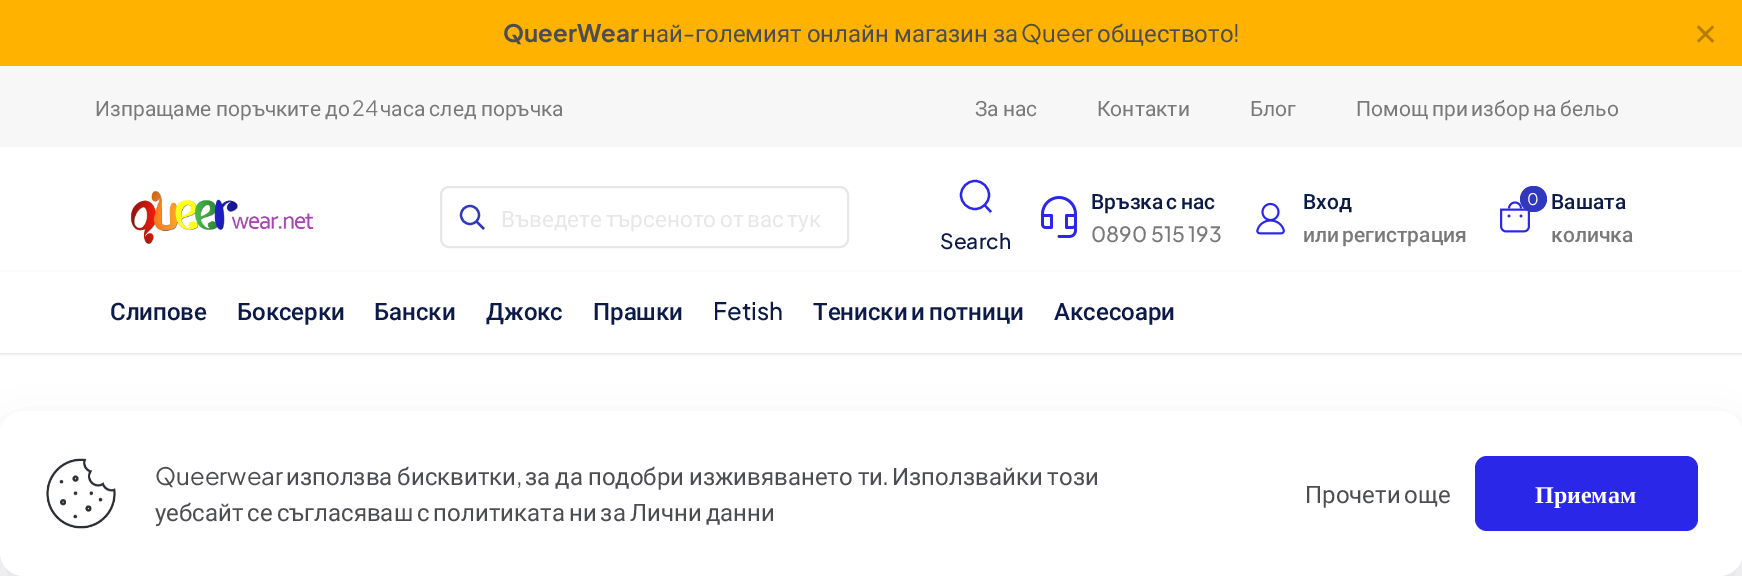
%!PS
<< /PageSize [1742 576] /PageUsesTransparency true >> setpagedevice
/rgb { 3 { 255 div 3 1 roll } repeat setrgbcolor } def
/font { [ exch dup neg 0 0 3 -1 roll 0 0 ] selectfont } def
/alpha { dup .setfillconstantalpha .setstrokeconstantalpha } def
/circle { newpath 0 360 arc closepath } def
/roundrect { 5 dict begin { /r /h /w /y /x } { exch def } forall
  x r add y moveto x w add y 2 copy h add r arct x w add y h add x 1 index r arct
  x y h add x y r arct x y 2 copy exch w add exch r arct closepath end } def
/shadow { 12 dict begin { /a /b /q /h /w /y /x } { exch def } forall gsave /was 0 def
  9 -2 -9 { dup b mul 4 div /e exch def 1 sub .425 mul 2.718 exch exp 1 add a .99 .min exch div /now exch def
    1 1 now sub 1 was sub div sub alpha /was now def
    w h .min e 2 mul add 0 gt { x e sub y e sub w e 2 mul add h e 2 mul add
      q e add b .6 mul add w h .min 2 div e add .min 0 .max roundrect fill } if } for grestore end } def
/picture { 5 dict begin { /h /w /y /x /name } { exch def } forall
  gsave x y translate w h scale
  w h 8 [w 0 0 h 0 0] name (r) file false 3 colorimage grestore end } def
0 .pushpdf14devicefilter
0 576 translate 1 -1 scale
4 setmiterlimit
247 247 247 rgb
0 0 1742 576 rectfill
255 179 0 rgb
0 0 1742 66 rectfill
255 255 255 rgb
0 147 1742 125 rectfill
(img/1.rgb) 130 191 184 53 picture
231 231 231 rgb
2 setlinewidth
441 187 407 60 8 roundrect stroke
47 56 191 rgb
2.2 setlinewidth
470 215 9 circle stroke
476.5 221.5 moveto 484 229 lineto stroke
42 39 233 rgb
975 195 14 circle stroke
984 204.5 moveto 991 212 lineto stroke
(img/2.rgb) 1041 196 36 42 picture
(img/3.rgb) 1256 202 29 33 picture
(img/4.rgb) 1500 201 30 32 picture
47 56 191 rgb
1520 186 27 26 13 roundrect fill
255 255 255 rgb
0 353 1742 223 rectfill
0 0 0 rgb
0 273 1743 81 0 1.5 0.12 shadow
255 255 255 rgb
0 272 1742 81 rectfill
1 7 39 rgb
0 434 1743 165 24 22.5 0.13 shadow
255 255 255 rgb
0 411 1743 165 24 roundrect fill
(img/5.rgb) 46 458 70 71 picture
42 39 233 rgb
1475 456 223 75 12 roundrect fill
/PlusJakartaSans-Bold 24 font
76 77 82 rgb
503 42 moveto (QueerWear) show
/Roboto-Regular 24 font
642 42 moveto (най) show
/PlusJakartaSans-Regular 24 font
683 42 moveto (-) show
/Roboto-Regular 24 font
695 42 moveto -1 0 32 (големият онлайн магазин за) widthshow
/PlusJakartaSans-Regular 24 font
1021 42 moveto (Queer) show
/Roboto-Regular 24 font
1097 42 moveto (обществото) show
/PlusJakartaSans-Regular 24 font
1233 42 moveto (!) show
/DejaVuSans-Regular 30 font
179 125 0 rgb
1693 45 moveto (✕) show
/Roboto-Regular 21 font
121 121 121 rgb
95 116 moveto -1 0 32 (Изпращаме поръчките до) widthshow
/PlusJakartaSans-Regular 21 font
352 116 moveto (24) show
/Roboto-Regular 21 font
380 116 moveto -1 0 32 (часа след поръчка) widthshow
975 116 moveto -1.5 0 32 (За нас) widthshow
1097 116 moveto (Контакти) show
1250 116 moveto (Блог) show
1356 116 moveto -1.5 0 32 (Помощ при избор на бельо) widthshow
/Roboto-Regular 22.5 font
231 231 231 rgb
501 227 moveto -2 0 32 (Въведете търсеното от вас тук) widthshow
/PlusJakartaSans-Medium 21 font
11 26 72 rgb
940 249 moveto (Search) show
/Roboto-Medium 21 font
1091 209 moveto -2 0 32 (Връзка с нас) widthshow
/PlusJakartaSans-Medium 21 font
121 121 121 rgb
1091 242 moveto (0890 515 193) show
/Roboto-Medium 21 font
11 26 72 rgb
1303 209 moveto (Вход) show
121 121 121 rgb
1303 242 moveto -2 0 32 (или регистрация) widthshow
/PlusJakartaSans-Regular 16 font
255 255 255 rgb
1527 205 moveto (0) show
/Roboto-Medium 21 font
11 26 72 rgb
1551 209 moveto (Вашата) show
121 121 121 rgb
1551 242 moveto (количка) show
/Roboto-Medium 24 font
11 26 72 rgb
[
  [(Слипове) 110 320]
  [(Боксерки) 237 320]
  [(Бански) 374 320]
  [(Джокс) 486 320]
  [(Прашки) 593 320]
] { aload pop moveto show } forall
/PlusJakartaSans-Medium 24 font
713 320 moveto (Fetish) show
/Roboto-Medium 24 font
813 320 moveto -2 0 32 (Тениски и потници) widthshow
1054 320 moveto (Аксесоари) show
/PlusJakartaSans-Regular 24 font
76 77 82 rgb
155 485 moveto (Queerwear) show
/Roboto-Regular 24 font
286 485 moveto -1 0 32 (използва бисквитки) widthshow
/PlusJakartaSans-Regular 24 font
516 485 moveto (,) show
/Roboto-Regular 24 font
525 485 moveto -1 0 32 (за да подобри изживяването ти) widthshow
/PlusJakartaSans-Regular 24 font
882 485 moveto (.) show
/Roboto-Regular 24 font
892 485 moveto -1 0 32 (Използвайки този) widthshow
155 521 moveto -2 0 32 (уебсайт се съгласяваш с политиката ни за) widthshow
630 521 moveto -2 0 32 (Лични данни) widthshow
1305 503 moveto -2 0 32 (Прочети още) widthshow
/LiberationSerif-Bold 24 font
255 255 255 rgb
1535 503 moveto (Приемам) show
.poppdf14devicefilter showpage
